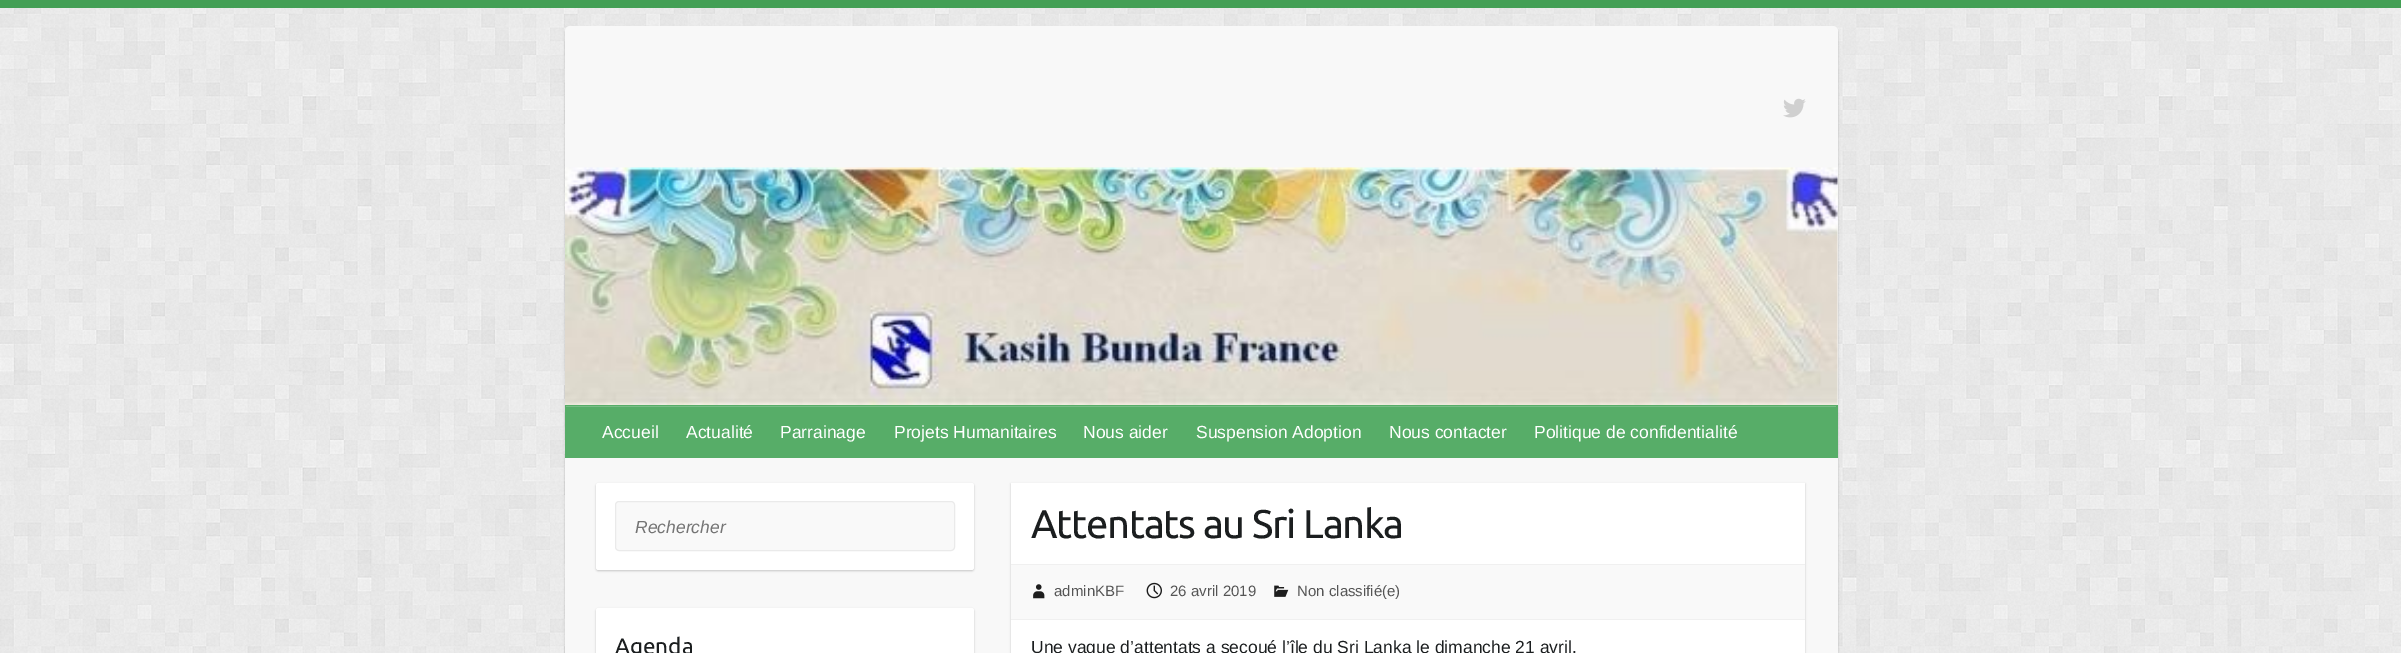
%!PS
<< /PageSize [2401 653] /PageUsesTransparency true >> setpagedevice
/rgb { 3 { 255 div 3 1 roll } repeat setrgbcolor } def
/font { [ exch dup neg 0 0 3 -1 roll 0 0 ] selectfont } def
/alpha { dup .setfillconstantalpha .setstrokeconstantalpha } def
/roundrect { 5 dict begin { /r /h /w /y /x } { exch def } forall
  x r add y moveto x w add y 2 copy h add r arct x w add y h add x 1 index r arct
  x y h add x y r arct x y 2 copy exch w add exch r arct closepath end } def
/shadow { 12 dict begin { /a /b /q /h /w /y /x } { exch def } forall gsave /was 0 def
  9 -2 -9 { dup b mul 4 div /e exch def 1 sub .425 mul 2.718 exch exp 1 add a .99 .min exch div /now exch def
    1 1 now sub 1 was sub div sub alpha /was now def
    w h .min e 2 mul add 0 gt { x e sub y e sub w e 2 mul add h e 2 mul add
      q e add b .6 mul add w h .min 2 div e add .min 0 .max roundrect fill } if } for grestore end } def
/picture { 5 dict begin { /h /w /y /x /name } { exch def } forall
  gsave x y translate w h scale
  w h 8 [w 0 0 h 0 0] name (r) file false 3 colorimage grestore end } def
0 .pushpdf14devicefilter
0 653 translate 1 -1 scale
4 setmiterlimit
255 255 255 rgb
0 0 2401 653 rectfill
(img/1.rgb) 0 8 2401 645 picture
67 159 85 rgb
0 0 2401 8 rectfill
0 0 0 rgb
565 28 1273 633 5 1 0.2 shadow
248 248 248 rgb
565 26 1273 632 5 roundrect fill
(img/2.rgb) 1783 98 23 20 picture
(img/3.rgb) 565 167 1273 238 picture
87 173 104 rgb
565 405 1273 53 rectfill
121 189 134 rgb
566 406 1270 1 rectfill
0 0 0 rgb
596 484 378 87 2.5 1 0.2 shadow
255 255 255 rgb
596 483 378 87 2.5 roundrect fill
249 249 249 rgb
615.5 501.5 339 49 3.5 roundrect gsave fill grestore
234 234 234 rgb
stroke
0 0 0 rgb
596 609 378 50 2.5 1 0.2 shadow
255 255 255 rgb
596 608 378 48 2.5 roundrect fill
0 0 0 rgb
1011 484 794 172 0 1 0.2 shadow
[
  [1011 483 794 170 255 255 255]
  [1011 565 794 54 249 249 249]
  [1011 564 794 1 240 240 240]
  [1011 619 794 1 240 240 240]
] { aload pop rgb rectfill } forall
(img/4.rgb) 1033 584 12 15 picture
(img/5.rgb) 1146 582 16 17 picture
(img/6.rgb) 1274 585 15 12 picture
/LiberationSans-Regular 17.5 font
255 255 255 rgb
[
  [(Accueil) 602 438]
  [(Actualité) 686 438]
  [(Parrainage) 780 438]
  [(Projets Humanitaires) 894 438]
  [(Nous aider) 1083 438]
  [(Suspension Adoption) 1196 438]
  [(Nous contacter) 1389 438]
  [(Politique de confidentialité) 1534 438]
] { aload pop moveto show } forall
/LiberationSans-Italic 17.5 font
117 117 117 rgb
635 533 moveto (Rechercher) show
/Ubuntu-Regular 22.5 font
27 30 31 rgb
615 654 moveto (Agenda) show
/Ubuntu-Regular 40 font
1031 538 moveto -1.25 0 (Attentats au Sri Lanka) ashow
/LiberationSans-Regular 15 font
85 85 85 rgb
[
  [(adminKBF) 1054 596]
  [(26 avril 2019) 1170 596]
  [(Non classifié\(e\)) 1297 596]
] { aload pop moveto show } forall
/LiberationSans-Regular 17.5 font
27 30 31 rgb
1031 653 moveto (Une vague d’attentats a secoué l’île du Sri Lanka le dimanche 21 avril.) show
.poppdf14devicefilter showpage
